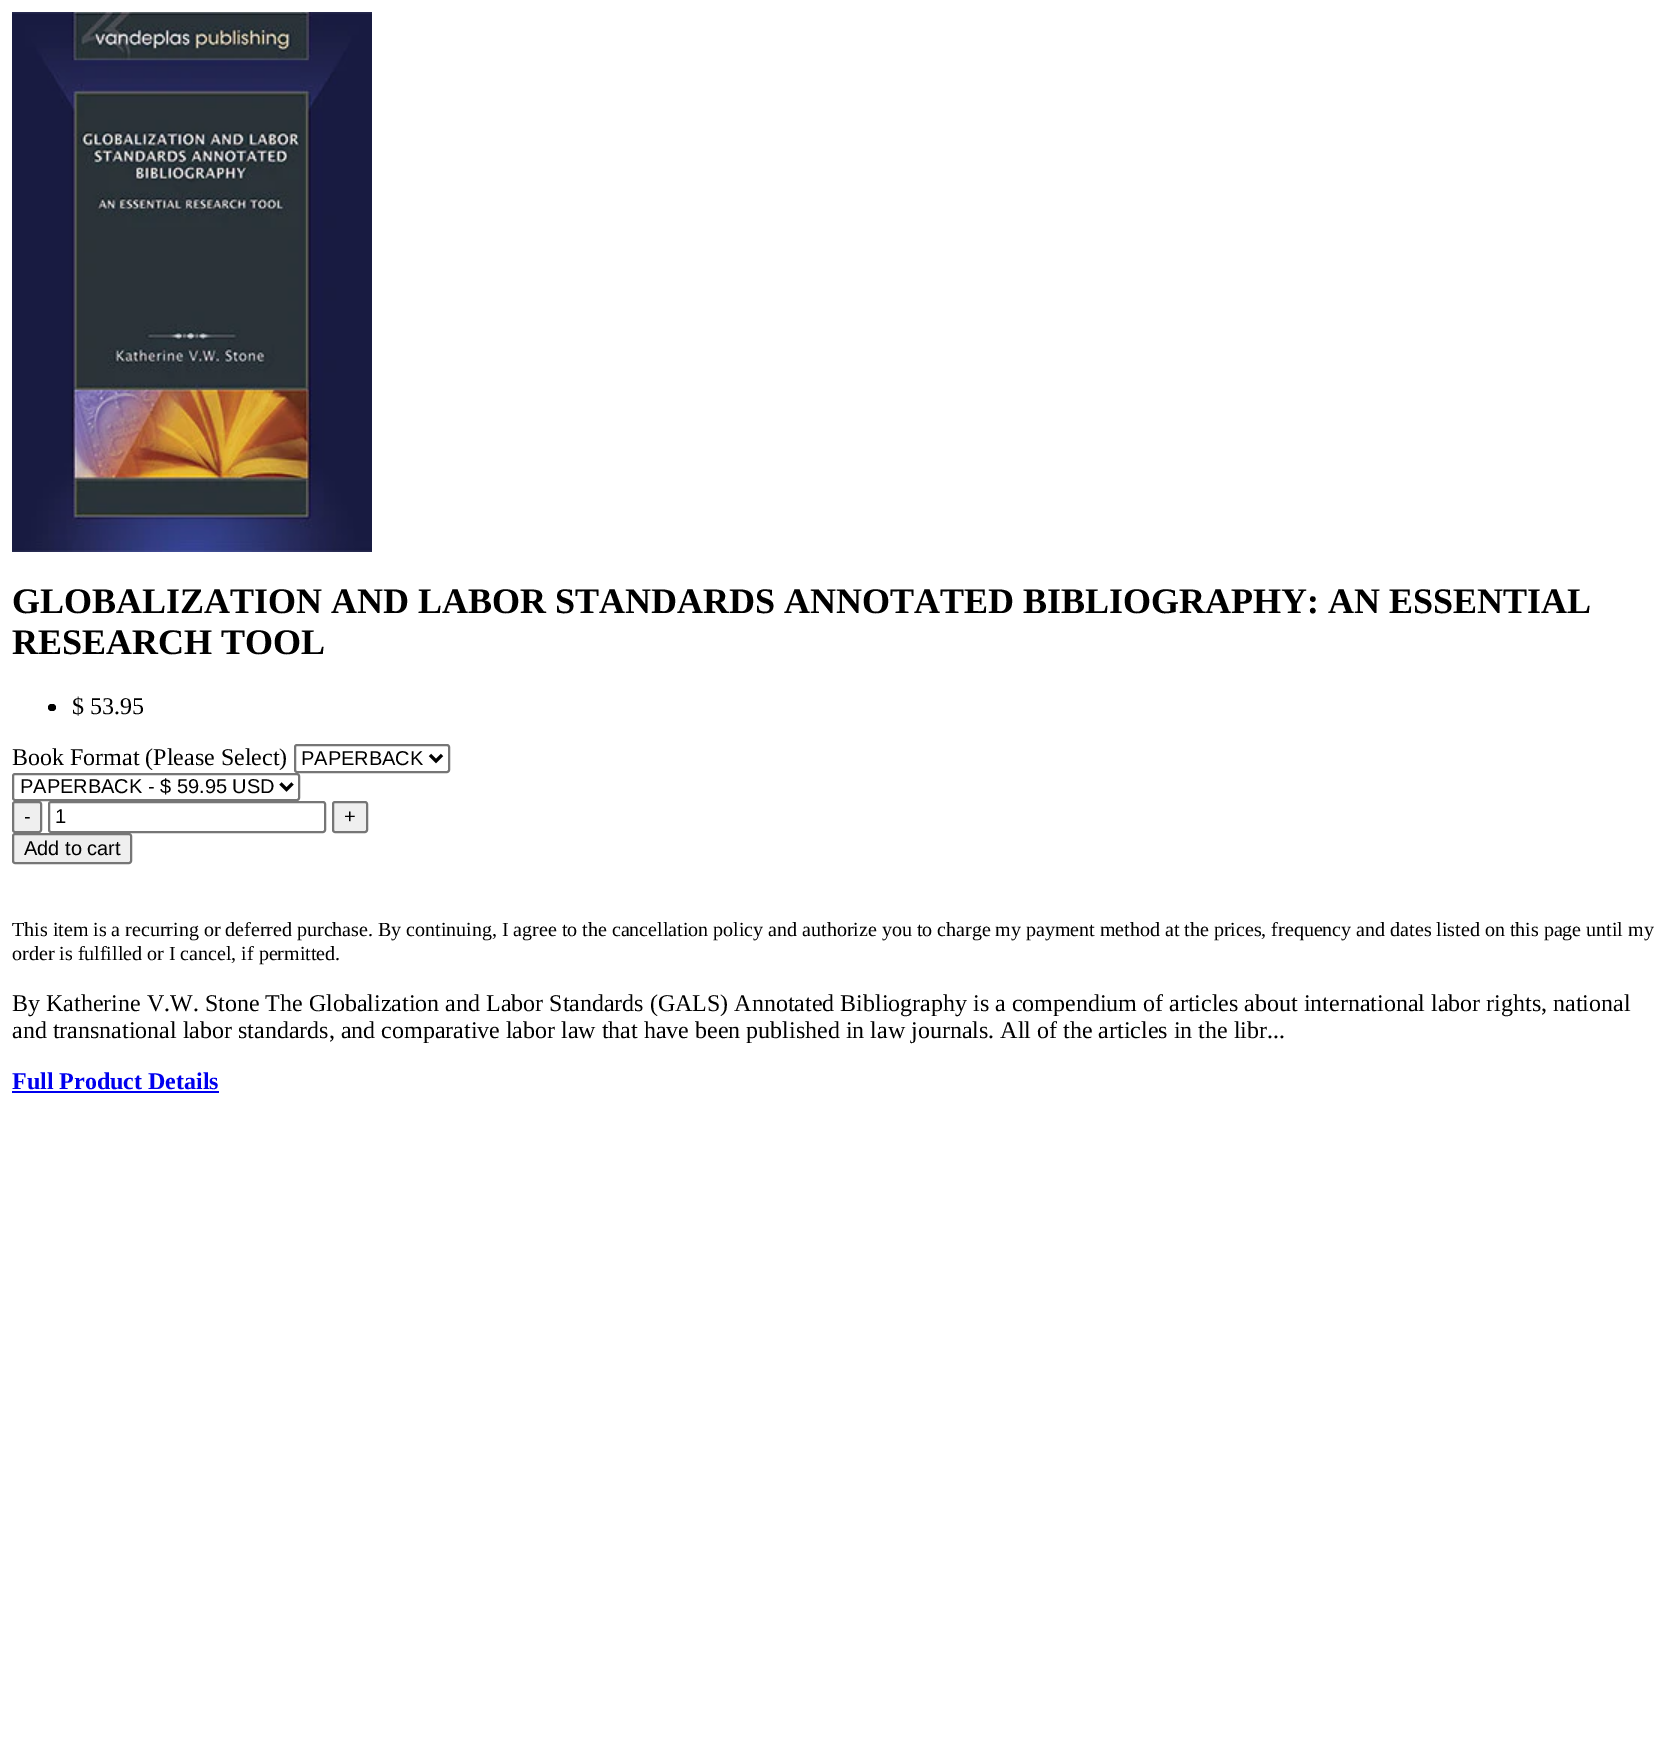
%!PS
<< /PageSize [1674 1759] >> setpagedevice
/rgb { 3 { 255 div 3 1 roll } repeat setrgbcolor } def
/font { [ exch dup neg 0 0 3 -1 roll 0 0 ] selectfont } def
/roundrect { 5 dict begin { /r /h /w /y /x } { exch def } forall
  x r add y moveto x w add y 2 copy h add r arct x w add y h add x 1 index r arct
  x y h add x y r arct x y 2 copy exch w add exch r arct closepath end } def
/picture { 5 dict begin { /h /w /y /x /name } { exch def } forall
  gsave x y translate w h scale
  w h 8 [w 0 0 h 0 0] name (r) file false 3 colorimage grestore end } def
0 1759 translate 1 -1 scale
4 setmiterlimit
255 255 255 rgb
0 0 1674 1759 rectfill
(img/1.rgb) 12 12 360 540 picture
0 0 0 rgb
48 704 8 7 3.5 roundrect fill
118 118 118 rgb
2 setlinewidth
295 745 154 27 2 roundrect stroke
0 0 0 rgb
3 setlinewidth
430 755 moveto 436 761 lineto 442 755 lineto stroke
118 118 118 rgb
2 setlinewidth
13 774 286 26 2 roundrect stroke
0 0 0 rgb
3 setlinewidth
280.5 783.5 moveto 286.5 789.5 lineto 292.5 783.5 lineto stroke
239 239 239 rgb
13 802 28 30 2 roundrect gsave fill grestore
118 118 118 rgb
2 setlinewidth
stroke
49 802 276 30 2 roundrect stroke
239 239 239 rgb
333 802 34 30 2 roundrect gsave fill grestore
118 118 118 rgb
stroke
239 239 239 rgb
13 834 118 29 2 roundrect gsave fill grestore
118 118 118 rgb
stroke
0 0 238 rgb
12 1091 207 2 rectfill
/LiberationSerif-Bold 36 font
0 0 0 rgb
12 613 moveto (GLOBALIZATION AND LABOR STANDARDS ANNOTATED BIBLIOGRAPHY: AN ESSENTIAL) show
12 654 moveto (RESEARCH TOOL) show
/LiberationSerif-Regular 24 font
72 714 moveto ($ 53.95) show
12 765 moveto (Book Format \(Please Select\)) show
/LiberationSans-Regular 20 font
[
  [(PAPERBACK) 301 765]
  [(PAPERBACK - $ 59.95 USD) 20 793]
  [(-) 24 823]
  [(1) 55 823]
  [(+) 344 823]
  [(Add to cart) 24 855]
] { aload pop moveto show } forall
/LiberationSerif-Regular 20 font
12 936 moveto (This item is a recurring or deferred purchase. By continuing, I agree to the cancellation policy and authorize you to charge my payment method at the prices, frequency and dates listed on this page until my) show
12 960 moveto (order is fulfilled or I cancel, if permitted.) show
/LiberationSerif-Regular 24 font
12 1011 moveto (By Katherine V.W. Stone The Globalization and Labor Standards \(GALS\) Annotated Bibliography is a compendium of articles about international labor rights, national) show
12 1038 moveto (and transnational labor standards, and comparative labor law that have been published in law journals. All of the articles in the libr...) show
/LiberationSerif-Bold 24 font
0 0 238 rgb
12 1089 moveto (Full Product Details) show
showpage
